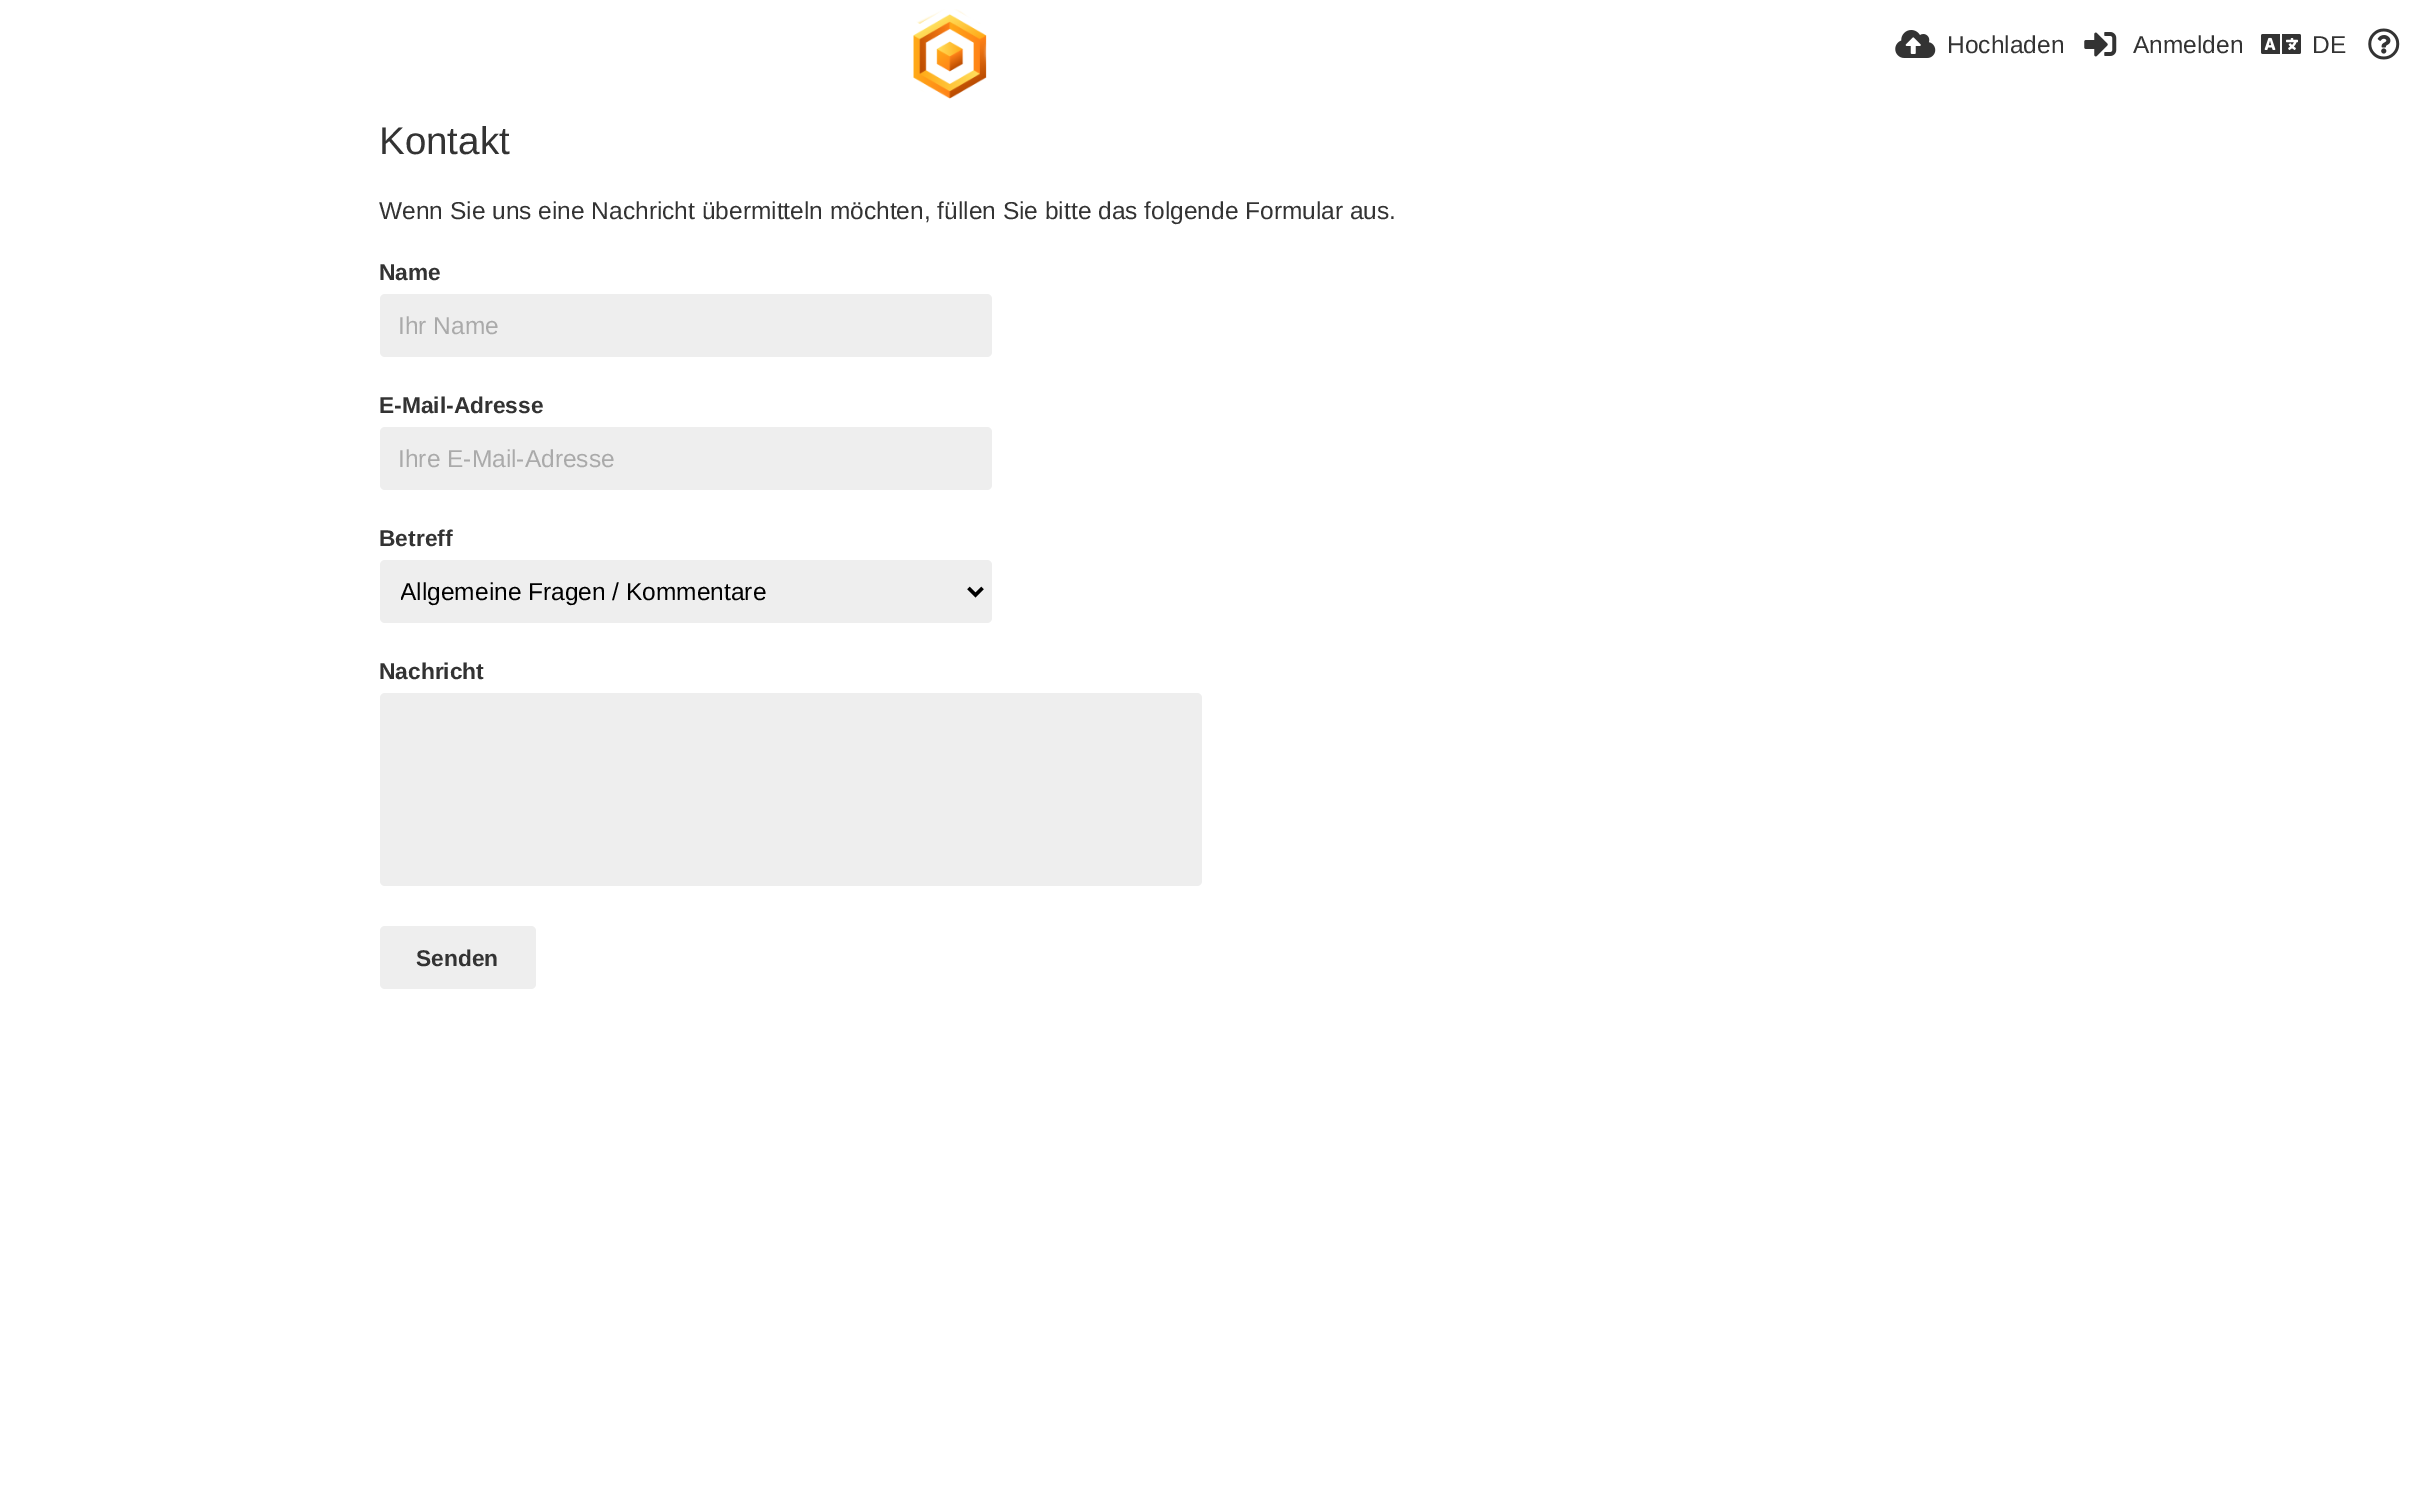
%!PS
<< /PageSize [2419 1492] >> setpagedevice
/rgb { 3 { 255 div 3 1 roll } repeat setrgbcolor } def
/font { [ exch dup neg 0 0 3 -1 roll 0 0 ] selectfont } def
/roundrect { 5 dict begin { /r /h /w /y /x } { exch def } forall
  x r add y moveto x w add y 2 copy h add r arct x w add y h add x 1 index r arct
  x y h add x y r arct x y 2 copy exch w add exch r arct closepath end } def
/picture { 5 dict begin { /h /w /y /x /name } { exch def } forall
  gsave x y translate w h scale
  w h 8 [w 0 0 h 0 0] name (r) file false 3 colorimage grestore end } def
0 1492 translate 1 -1 scale
4 setmiterlimit
255 255 255 rgb
0 0 2419 1492 rectfill
(img/1.rgb) 913 9 74 90 picture
(img/2.rgb) 1895 30 41 28 picture
(img/3.rgb) 2084 32 33 25 picture
(img/4.rgb) 2261 34 40 20 picture
(img/5.rgb) 2368 28 32 32 picture
238 238 238 rgb
380 294 612 63 5 roundrect fill
380 427 612 63 5 roundrect fill
380 560 612 63 5 roundrect fill
0 0 0 rgb
3.5 setlinewidth
968.5 588 moveto 975.5 595 lineto 982.5 588 lineto stroke
238 238 238 rgb
380 693 822 193 5 roundrect fill
380 926 156 63 5 roundrect fill
/LiberationSans-Regular 24.5 font
51 51 51 rgb
[
  [(Hochladen) 1947 53]
  [(Anmelden) 2133 53]
  [(DE) 2312 53]
] { aload pop moveto show } forall
/LiberationSans-Regular 38.5 font
379 154 moveto (Kontakt) show
/LiberationSans-Regular 24.5 font
379 219 moveto (Wenn Sie uns eine Nachricht übermitteln möchten, füllen Sie bitte das folgende Formular aus.) show
/LiberationSans-Bold 22.75 font
379 280 moveto (Name) show
/LiberationSans-Regular 24.5 font
170 170 170 rgb
398 334 moveto (Ihr Name) show
/LiberationSans-Bold 22.75 font
51 51 51 rgb
379 413 moveto (E-Mail-Adresse) show
/LiberationSans-Regular 24.5 font
170 170 170 rgb
398 467 moveto (Ihre E-Mail-Adresse) show
/LiberationSans-Bold 22.75 font
51 51 51 rgb
379 546 moveto (Betreff) show
gsave
401 576 544 31 rectclip
/LiberationSans-Regular 24.5 font
0 0 0 rgb
400 600 moveto (Allgemeine Fragen / Kommentare) show
grestore
379 679 moveto (Nachricht) show
416 966 moveto (Senden) show
showpage
